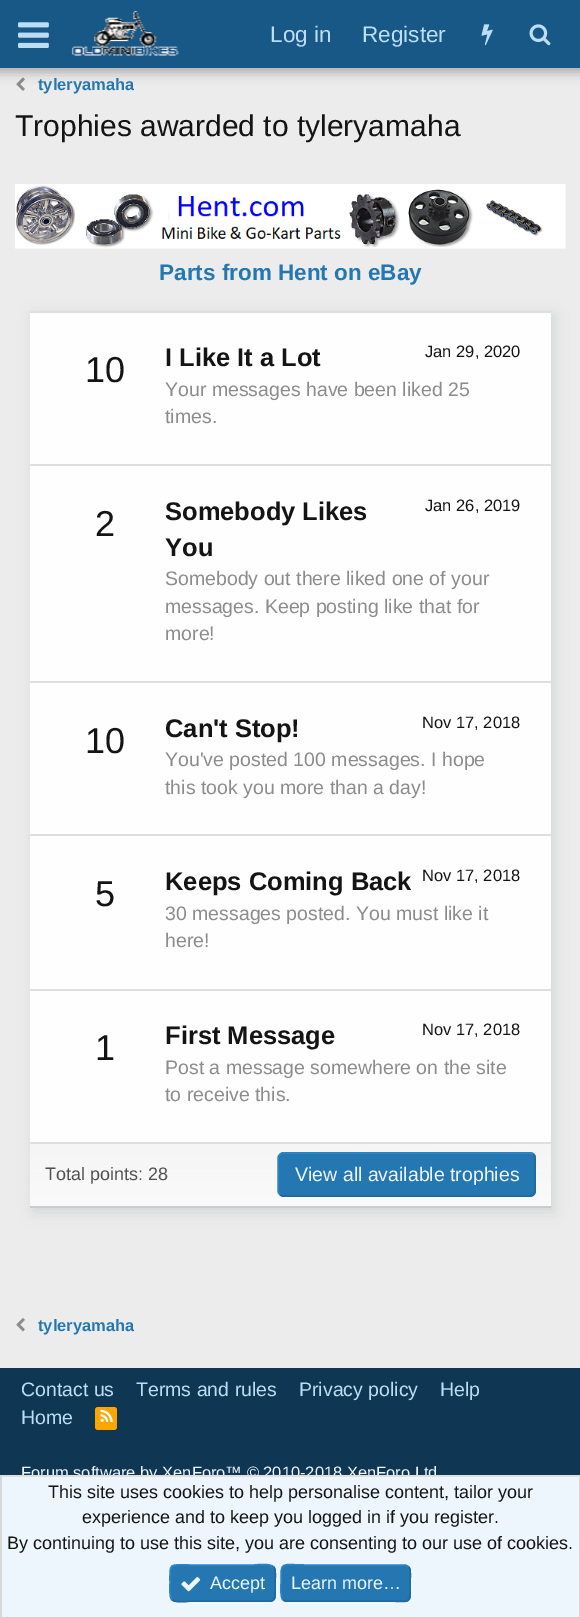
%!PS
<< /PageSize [580 1618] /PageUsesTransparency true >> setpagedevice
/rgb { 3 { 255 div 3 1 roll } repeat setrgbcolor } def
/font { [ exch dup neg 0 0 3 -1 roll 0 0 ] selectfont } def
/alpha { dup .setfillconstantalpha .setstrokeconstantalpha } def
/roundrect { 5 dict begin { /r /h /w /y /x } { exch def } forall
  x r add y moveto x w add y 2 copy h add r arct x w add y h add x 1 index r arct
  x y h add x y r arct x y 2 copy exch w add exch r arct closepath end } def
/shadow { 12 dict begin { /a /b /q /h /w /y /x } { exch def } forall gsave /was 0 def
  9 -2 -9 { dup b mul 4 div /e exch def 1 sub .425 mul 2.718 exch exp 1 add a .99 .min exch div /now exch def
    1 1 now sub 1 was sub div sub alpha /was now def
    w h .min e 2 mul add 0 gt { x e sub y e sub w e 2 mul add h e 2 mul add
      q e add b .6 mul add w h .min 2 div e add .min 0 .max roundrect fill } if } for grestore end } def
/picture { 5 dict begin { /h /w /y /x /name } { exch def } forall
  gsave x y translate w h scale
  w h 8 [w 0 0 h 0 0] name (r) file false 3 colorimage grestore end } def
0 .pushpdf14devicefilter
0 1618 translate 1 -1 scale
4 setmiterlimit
236 236 236 rgb
0 0 580 1618 rectfill
(img/5.rgb) 16 77 9 14 picture
0 0 0 rgb
-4 -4 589 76 0 6 0.3 shadow
24 88 134 rgb
0 0 580 68 rectfill
(img/1.rgb) 18 22 31 26 picture
(img/2.rgb) 71 11 108 45 picture
(img/3.rgb) 481 24 12 22 picture
(img/4.rgb) 529 24 22 22 picture
(img/6.rgb) 15 184 551 65 picture
211 212 213 rgb
33 315 521 897 0 7 1 shadow
[
  [30 313 521 829 254 254 254]
  [30 311 521 2 223 223 223]
  [30 1206 521 2 203 203 203]
  [30 464 521 2 223 223 223]
  [30 681 521 2 223 223 223]
  [30 834 521 2 223 223 223]
  [30 989 521 2 223 223 223]
] { aload pop rgb rectfill } forall
gsave 30 1144 moveto 551 1144 lineto 551 1206 lineto 30 1206 lineto closepath clip newpath
<< /ShadingType 2 /ColorSpace /DeviceRGB /Coords [290 1143 290 1206] /Extend [true true] /Function << /FunctionType 2 /Domain [0 1] /C0 [0.961 0.961 0.961] /C1 [0.98 0.98 0.98] /N 1 >> >> shfill grestore
30 1142 521 2 rectfill
37 119 177 rgb
278 1152 258 45 6 roundrect fill
33 105 156 rgb
1.5 setlinewidth
533 1154.5 moveto 534 1155.5 535 1156.5 535 1158 curveto 535 1191 lineto 535 1192.5 534 1193.5 533 1194.5 curveto 532 1195.5 531 1196 529.5 1196 curveto 283.5 1196 lineto 282 1196 281 1195.5 280 1194.5 curveto stroke
41 133 198 rgb
280 1194.5 moveto 279 1193.5 278 1192.5 278 1191 curveto 278 1158 lineto 278 1156.5 279 1155.5 280 1154.5 curveto 281 1153.5 282 1153 283.5 1153 curveto 529.5 1153 lineto 531 1153 532 1153.5 533 1154.5 curveto stroke
(img/7.rgb) 16 1318 9 14 picture
15 54 82 rgb
0 1368 580 107 rectfill
255 165 0 rgb
95 1407 22 23 3 roundrect fill
(img/8.rgb) 100 1409 13 13 picture
237 246 253 rgb
2 1477 577 140 rectfill
37 119 177 rgb
170 1565 106 37 6 roundrect fill
33 105 156 rgb
273.5 1567 moveto 276.5 1569.5 275 1579.5 275 1583 curveto 275 1604.5 277 1601 254 1601 curveto 191 1601 lineto 189.5 1601 175.5 1603.5 172 1599.5 curveto stroke
41 133 198 rgb
172 1599.5 moveto 169 1597 170 1587 170 1583 curveto 170 1562 168.5 1565 191 1565 curveto 254 1565 lineto 256 1565 270 1563 273.5 1567 curveto stroke
(img/9.rgb) 181 1577 20 15 picture
37 119 177 rgb
281 1565 130 37 6 roundrect fill
33 105 156 rgb
408.5 1567 moveto 411.5 1569.5 410 1579.5 410 1583 curveto 410 1606 411.5 1601 385 1601 curveto 286.5 1601 lineto 285 1601 284 1600.5 283 1599.5 curveto stroke
41 133 198 rgb
283 1599.5 moveto 280 1597 281 1587 281 1583 curveto 281 1560.5 280 1565 306 1565 curveto 405 1565 lineto 406.5 1565.5 407.5 1566 408.5 1567 curveto stroke
/LiberationSans-Regular 22.5 font
188 222 245 rgb
270 42 moveto (Log in) show
362 42 moveto (Register) show
gsave
38 72 96 26 rectclip
/LiberationSans-Bold 16.5 font
37 119 177 rgb
38 90 moveto (tyleryamaha) show
grestore
/LiberationSans-Regular 30 font
20 20 20 rgb
15 136 moveto (Trophies awarded to tyleryamaha) show
/LiberationSans-Bold 22.5 font
37 119 177 rgb
159 280 moveto (Parts from Hent on eBay) show
/LiberationSans-Regular 36 font
20 20 20 rgb
85 382 moveto (10) show
/LiberationSans-Bold 25.5 font
165 366 moveto (I Like It a Lot) show
/LiberationSans-Regular 16.5 font
425 357 moveto (Jan 29, 2020) show
/LiberationSans-Regular 19.5 font
140 140 140 rgb
165 396 moveto (Your messages have been liked 25) show
165 423 moveto (times.) show
/LiberationSans-Regular 36 font
20 20 20 rgb
95 536 moveto (2) show
/LiberationSans-Bold 25.5 font
165 520 moveto (Somebody Likes) show
165 556 moveto (You) show
/LiberationSans-Regular 16.5 font
425 511 moveto (Jan 26, 2019) show
/LiberationSans-Regular 19.5 font
140 140 140 rgb
[
  [(Somebody out there liked one of your) 165 585]
  [(messages. Keep posting like that for) 165 613]
  [(more!) 165 640]
] { aload pop moveto show } forall
/LiberationSans-Regular 36 font
20 20 20 rgb
85 753 moveto (10) show
/LiberationSans-Bold 25.5 font
165 737 moveto (Can't Stop!) show
/LiberationSans-Regular 16.5 font
422 728 moveto (Nov 17, 2018) show
/LiberationSans-Regular 19.5 font
140 140 140 rgb
165 766 moveto (You've posted 100 messages. I hope) show
165 794 moveto (this took you more than a day!) show
/LiberationSans-Regular 36 font
20 20 20 rgb
95 906 moveto (5) show
/LiberationSans-Bold 25.5 font
165 890 moveto (Keeps Coming Back) show
/LiberationSans-Regular 16.5 font
422 881 moveto (Nov 17, 2018) show
/LiberationSans-Regular 19.5 font
140 140 140 rgb
165 920 moveto (30 messages posted. You must like it) show
165 947 moveto (here!) show
/LiberationSans-Regular 36 font
20 20 20 rgb
95 1060 moveto (1) show
/LiberationSans-Bold 25.5 font
165 1044 moveto (First Message) show
/LiberationSans-Regular 16.5 font
422 1035 moveto (Nov 17, 2018) show
/LiberationSans-Regular 19.5 font
140 140 140 rgb
165 1074 moveto (Post a message somewhere on the site) show
165 1101 moveto (to receive this.) show
/LiberationSans-Regular 18 font
80 80 80 rgb
45 1180 moveto (Total points: 28) show
/LiberationSans-Regular 19.5 font
237 246 253 rgb
295 1181 moveto (View all available trophies) show
gsave
38 1313 96 25 rectclip
/LiberationSans-Bold 16.5 font
37 119 177 rgb
38 1331 moveto (tyleryamaha) show
grestore
188 222 245 rgb
[
  [(Contact us) 21 1396]
  [(Terms and rules) 136 1396]
  [(Privacy policy) 299 1396]
  [(Help) 440 1396]
  [(Home) 21 1424]
] { aload pop moveto show } forall
/LiberationSans-Regular 16.5 font
237 246 253 rgb
21 1478 moveto (Forum software by XenForo™ © 2010-2018 XenForo Ltd) show
[
  [0 1475 580 2 223 223 223]
  [579 1475 1 143 216 216 216]
  [0 1617 580 1 203 203 203]
  [0 1475 2 143 216 216 216]
] { aload pop rgb rectfill } forall
/LiberationSans-Regular 18 font
20 20 20 rgb
[
  [(This site uses cookies to help personalise content, tailor your) 48 1498]
  [(experience and to keep you logged in if you register.) 82 1523]
  [(By continuing to use this site, you are consenting to our use of cookies.) 7 1549]
] { aload pop moveto show } forall
237 246 253 rgb
210 1589 moveto (Accept) show
291 1589 moveto (Learn more…) show
.poppdf14devicefilter showpage
